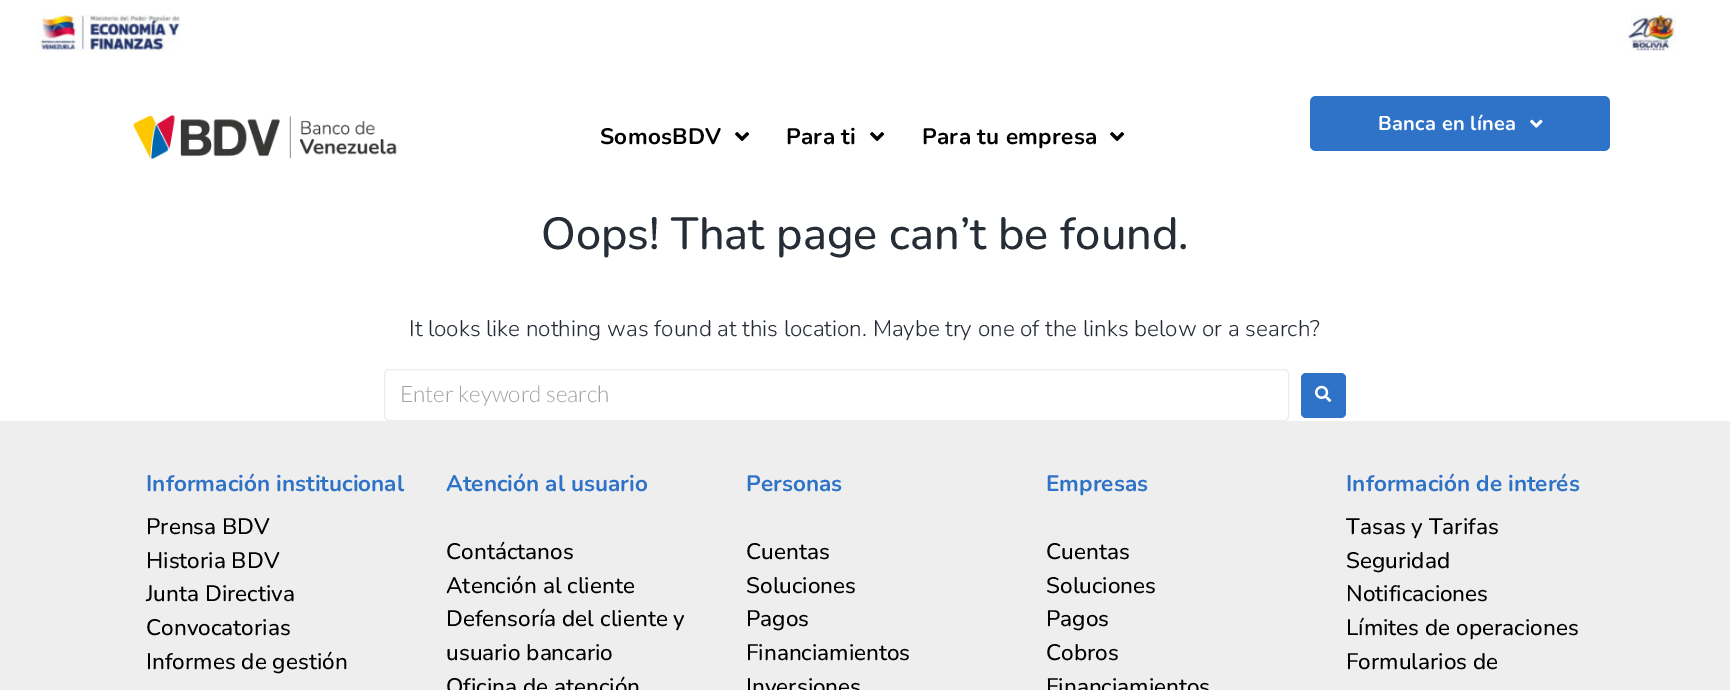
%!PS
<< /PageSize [1730 690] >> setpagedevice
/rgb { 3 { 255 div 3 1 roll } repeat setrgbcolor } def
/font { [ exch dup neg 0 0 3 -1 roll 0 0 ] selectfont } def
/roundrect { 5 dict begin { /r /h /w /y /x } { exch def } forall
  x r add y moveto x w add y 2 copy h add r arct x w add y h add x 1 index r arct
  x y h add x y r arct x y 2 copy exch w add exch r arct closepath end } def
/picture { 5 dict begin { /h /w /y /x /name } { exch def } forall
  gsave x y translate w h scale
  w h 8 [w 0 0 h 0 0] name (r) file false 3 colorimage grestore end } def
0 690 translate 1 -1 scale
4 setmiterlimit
255 255 255 rgb
0 0 1730 690 rectfill
(img/1.rgb) 36 15 1640 36 picture
(img/2.rgb) 133 115 264 44 picture
(img/3.rgb) 735 132 15 10 picture
(img/3.rgb) 870 132 15 10 picture
(img/3.rgb) 1110 132 15 10 picture
46 115 199 rgb
1310 96 300 55 6 roundrect fill
(img/4.rgb) 1530 119 13 9 picture
235 236 237 rgb
384.5 369.5 904 51 4.5 roundrect stroke
46 115 199 rgb
1301 373 45 45 5 roundrect fill
(img/5.rgb) 1315 385 17 17 picture
238 238 238 rgb
0 421 1730 269 rectfill
/Nunito-Bold 22.5 font
0 0 0 rgb
600 144 moveto 0.25 0 (SomosBDV) ashow
786 144 moveto 0.25 0 (Para ti) ashow
922 144 moveto 0.25 0 (Para tu empresa) ashow
/Nunito-Bold 20 font
255 255 255 rgb
1378 130 moveto 0.25 0 (Banca en línea) ashow
/Nunito-Medium 45 font
38 45 54 rgb
541 249 moveto (Oops! That page can’t be found.) show
/Nunito-Light 22.5 font
409 336 moveto (It looks like nothing was found at this location. Maybe try one of the links below or a search?) show
/Lato-Light 22.5 font
161 163 166 rgb
400 402 moveto (Enter keyword search) show
/Nunito-Bold 22.5 font
46 115 199 rgb
146 491 moveto (Información institucional) show
/Nunito-Medium 22.5 font
0 0 0 rgb
[
  [(Prensa BDV) 146 534]
  [(Historia BDV) 146 568]
  [(Junta Directiva) 146 601]
  [(Convocatorias) 146 635]
  [(Informes de gestión) 146 669]
] { aload pop moveto show } forall
/Nunito-Bold 22.5 font
46 115 199 rgb
446 491 moveto (Atención al usuario) show
/Nunito-Medium 22.5 font
0 0 0 rgb
[
  [(Contáctanos) 446 559]
  [(Atención al cliente) 446 593]
  [(Defensoría del cliente y) 446 626]
  [(usuario bancario) 446 660]
  [(Oficina de atención) 446 694]
] { aload pop moveto show } forall
/Nunito-Bold 22.5 font
46 115 199 rgb
746 491 moveto (Personas) show
/Nunito-Medium 22.5 font
0 0 0 rgb
[
  [(Cuentas) 746 559]
  [(Soluciones) 746 593]
  [(Pagos) 746 626]
  [(Financiamientos) 746 660]
  [(Inversiones) 746 694]
] { aload pop moveto show } forall
/Nunito-Bold 22.5 font
46 115 199 rgb
1046 491 moveto (Empresas) show
/Nunito-Medium 22.5 font
0 0 0 rgb
[
  [(Cuentas) 1046 559]
  [(Soluciones) 1046 593]
  [(Pagos) 1046 626]
  [(Cobros) 1046 660]
  [(Financiamientos) 1046 694]
] { aload pop moveto show } forall
/Nunito-Bold 22.5 font
46 115 199 rgb
1346 491 moveto (Información de interés) show
/Nunito-Medium 22.5 font
0 0 0 rgb
[
  [(Tasas y Tarifas) 1346 534]
  [(Seguridad) 1346 568]
  [(Notificaciones) 1346 601]
  [(Límites de operaciones) 1346 635]
  [(Formularios de) 1346 669]
] { aload pop moveto show } forall
showpage
